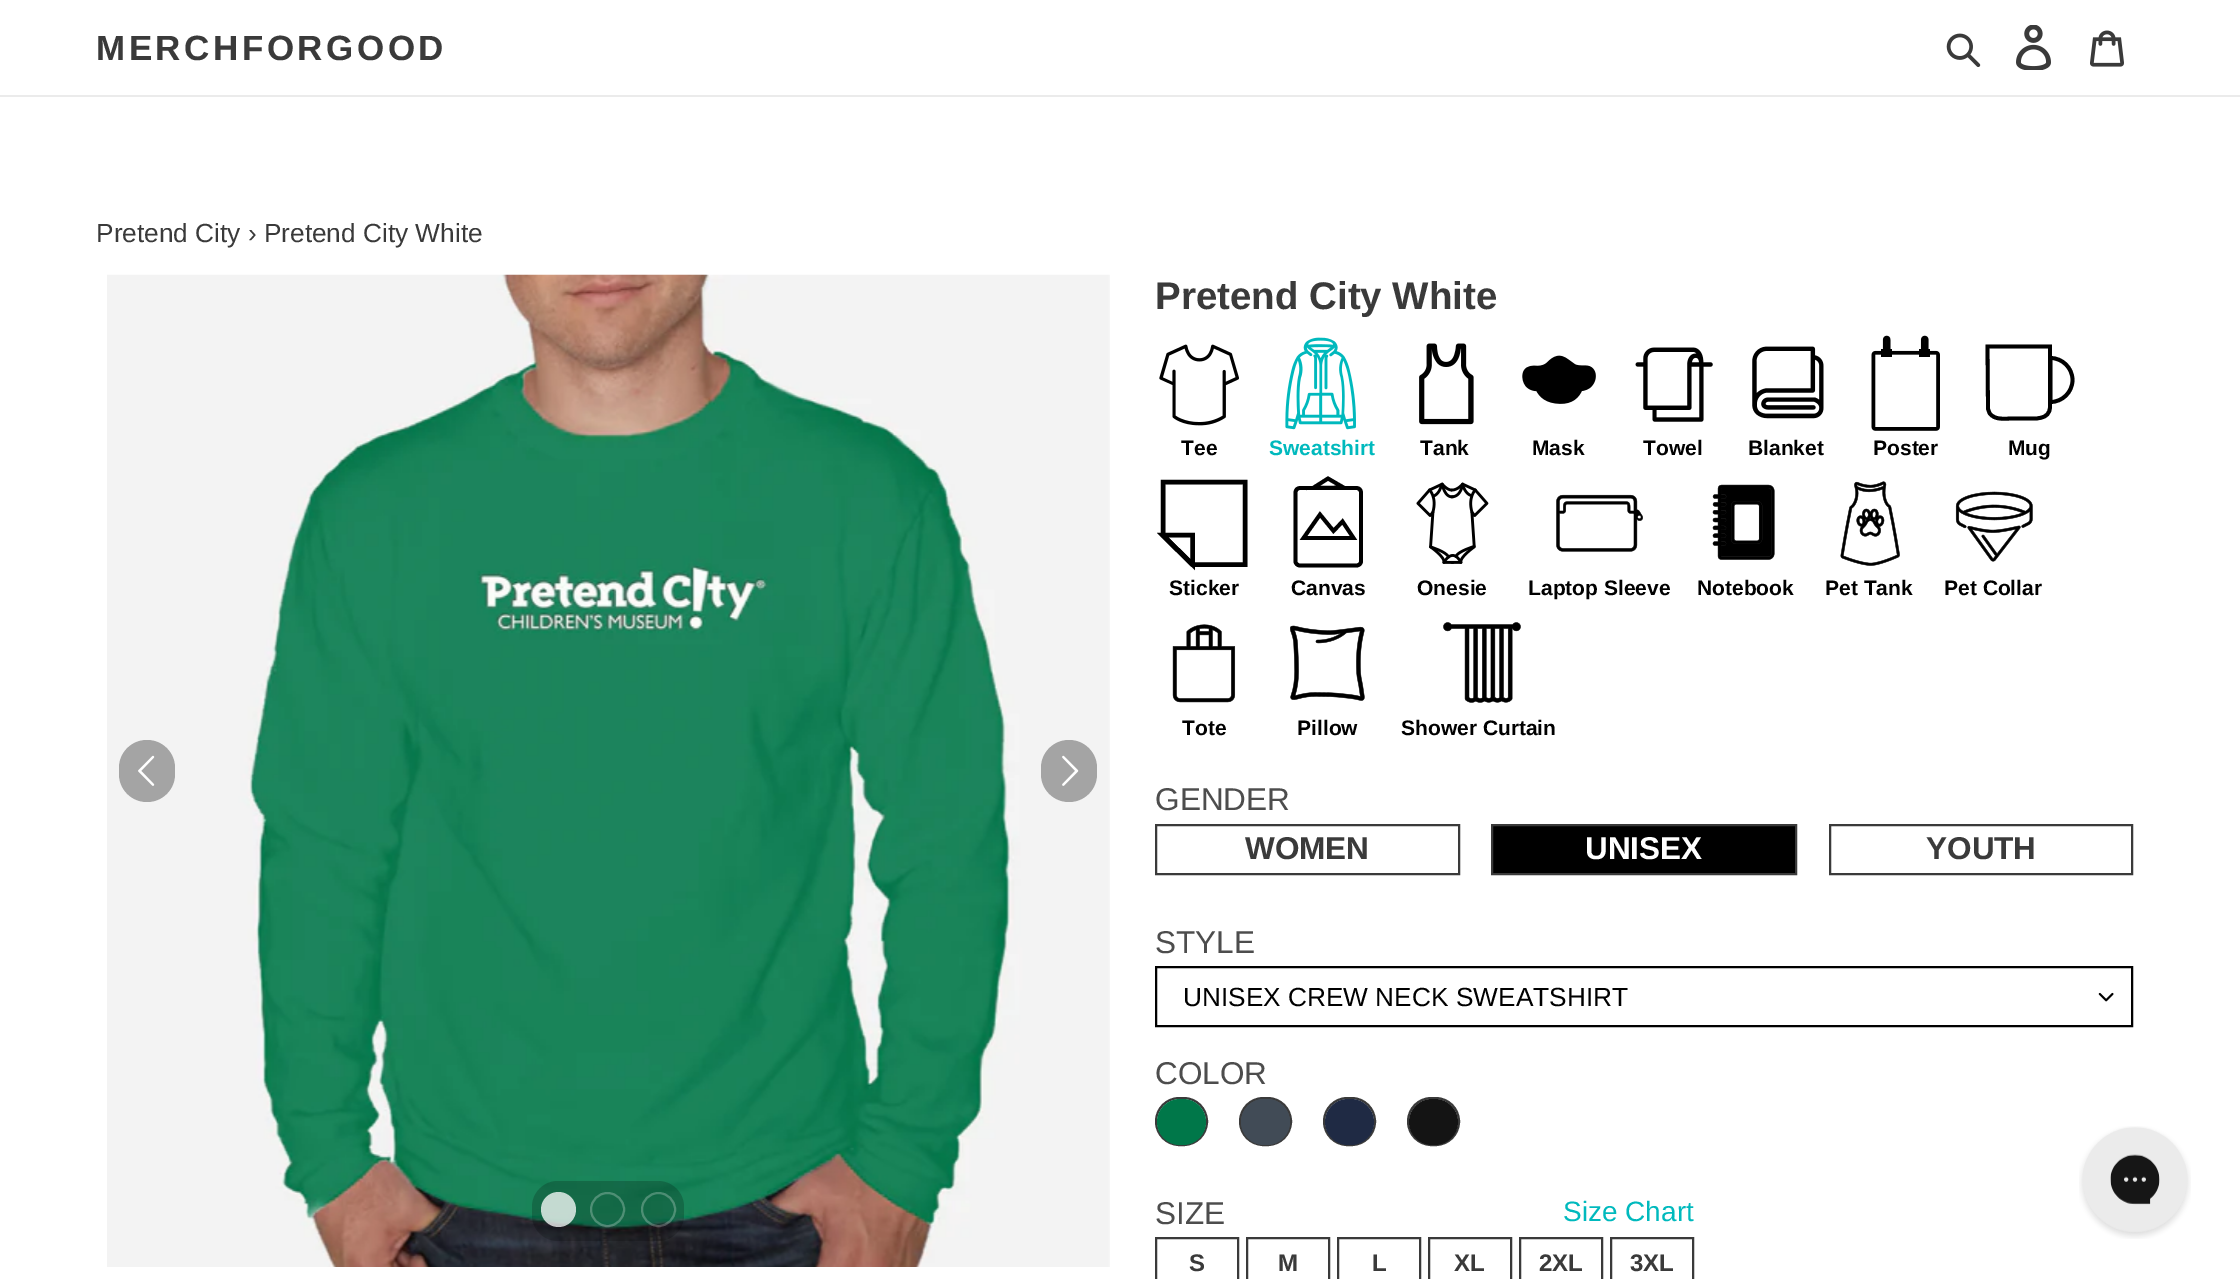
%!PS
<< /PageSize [2240 1279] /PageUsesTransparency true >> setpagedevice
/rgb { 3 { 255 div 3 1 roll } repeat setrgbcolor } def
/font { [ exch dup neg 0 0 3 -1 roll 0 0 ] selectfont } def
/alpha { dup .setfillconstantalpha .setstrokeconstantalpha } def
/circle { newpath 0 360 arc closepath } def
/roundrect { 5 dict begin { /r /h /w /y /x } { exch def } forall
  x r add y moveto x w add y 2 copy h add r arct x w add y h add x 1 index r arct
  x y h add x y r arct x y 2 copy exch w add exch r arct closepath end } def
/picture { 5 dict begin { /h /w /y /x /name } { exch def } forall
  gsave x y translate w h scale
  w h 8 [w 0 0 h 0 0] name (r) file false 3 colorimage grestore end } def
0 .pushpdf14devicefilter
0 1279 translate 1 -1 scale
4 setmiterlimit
255 255 255 rgb
0 0 2240 1279 rectfill
235 235 235 rgb
0 95 2240 2 rectfill
(img/1.rgb) 1946 33 35 34 picture
(img/2.rgb) 2016 25 35 45 picture
(img/3.rgb) 2090 30 34 37 picture
(img/4.rgb) 107 274 1003 993 picture
0.2 alpha
0 0 0 rgb
532 1181 152 60 26 roundrect fill
0.75 alpha
255 255 255 rgb
558.5 1209.5 17.5 circle fill
0.25 alpha
2 setlinewidth
607.5 1209.5 16.5 circle stroke
658.5 1209.5 16.5 circle stroke
1 alpha
164 164 164 rgb
119 740 56 62 28 roundrect fill
(img/5.rgb) 138 755 17 31 picture
1041 740 56 62 28 roundrect fill
(img/6.rgb) 1062 755 17 31 picture
(img/7.rgb) 1159 344 80 82 picture
(img/8.rgb) 1285 337 71 93 picture
(img/9.rgb) 1419 343 55 82 picture
(img/10.rgb) 1522 355 74 49 picture
(img/11.rgb) 1635 347 78 75 picture
(img/12.rgb) 1752 346 72 73 picture
(img/13.rgb) 1871 335 69 96 picture
0 0 0 rgb
3.8 setlinewidth
2050 357.5 moveto 2050 346.5 lineto 1987.5 346.5 lineto 1988 409 lineto 1989.5 413 lineto 1994.5 420.5 2005 418.5 2012.5 418.5 curveto 2025 418.5 lineto 2034.5 418.5 2050 420.5 2050 406.5 curveto closepath stroke
2072.5 380 moveto 2072.5 368 2062.5 358 2050.5 358 curveto 2050.5 402 lineto 2062.5 402 2072.5 392 2072.5 380 curveto closepath stroke
4.6 setlinewidth
1163 482 moveto 1163 535.5 lineto 1192.5 564.5 lineto 1245 564.5 lineto 1245 482 lineto closepath stroke
1192.5 564.5 moveto 1162.5 535 lineto 1192.5 535 lineto closepath stroke
3.8 setlinewidth
1303.5 538 moveto 1353.5 538 lineto 1342.5 521.5 lineto 1333.5 531 lineto 1320 514.5 lineto closepath stroke
1356.5 488 moveto 1300 488 lineto 1297.5 488 1295.5 490 1295.5 492.5 curveto 1295.5 561.5 lineto 1295.5 563.5 1297.5 565.5 1300 565.5 curveto 1356.5 565.5 lineto 1359 565.5 1361 563.5 1361 561.5 curveto 1361 492.5 lineto 1361 490 1359 488 1356.5 488 curveto closepath stroke
1328 478.5 moveto 1313 488 lineto 1343.5 487.5 lineto closepath stroke
(img/14.rgb) 1416 482 73 82 picture
(img/15.rgb) 1556 494 87 58 picture
(img/16.rgb) 1712 484 63 76 picture
(img/17.rgb) 1840 481 60 85 picture
(img/18.rgb) 1955 491 78 71 picture
(img/19.rgb) 1172 624 64 79 picture
(img/20.rgb) 1290 625 75 76 picture
(img/21.rgb) 1443 622 78 81 picture
58 58 58 rgb
2 setlinewidth
1156 825 303 49 rectstroke
0 0 0 rgb
1492 825 moveto 1796 825 lineto 1796 874 lineto 1492 874 lineto closepath gsave fill grestore
58 58 58 rgb
stroke
1830 825 302 49 rectstroke
(img/22.rgb) 2098 992 16 10 picture
0 0 0 rgb
1156 967 976 59 rectstroke
58 58 58 rgb
1156 1098 51 47 23.5 roundrect stroke
0 119 73 rgb
1157 1099 49 46 23 roundrect fill
83 86 90 rgb
1240 1098 51 47 23.5 roundrect gsave fill grestore
58 58 58 rgb
stroke
65 75 86 rgb
1241 1099 49 46 23 roundrect fill
58 58 58 rgb
1324 1098 51 47 23.5 roundrect stroke
31 42 68 rgb
1325 1099 49 46 23 roundrect fill
58 58 58 rgb
1408 1098 51 47 23.5 roundrect stroke
20 20 20 rgb
1409 1099 49 46 23 roundrect fill
58 58 58 rgb
1156 1238 82 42 rectstroke
1247 1238 82 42 rectstroke
1338 1238 82 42 rectstroke
1429 1238 82 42 rectstroke
1520 1238 82 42 rectstroke
1611 1238 82 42 rectstroke
(img/23.rgb) 2079 1126 112 113 picture
/LiberationSans-Bold 35 font
96 60 moveto 3.5 0 (MERCHFORGOOD) ashow
/LiberationSans-Regular 26.25 font
96 242 moveto (Pretend City › Pretend City White) show
/LiberationSans-Bold 38.5 font
1155 309 moveto (Pretend City White) show
/LiberationSans-Bold 21 font
0 0 0 rgb
1181 455 moveto (Tee) show
0 185 189 rgb
1269 455 moveto (Sweatshirt) show
0 0 0 rgb
[
  [(Tank) 1420 455]
  [(Mask) 1532 455]
  [(Towel) 1643 455]
  [(Blanket) 1748 455]
  [(Poster) 1873 455]
  [(Mug) 2008 455]
  [(Sticker) 1169 595]
  [(Canvas) 1291 595]
  [(Onesie) 1417 595]
  [(Laptop Sleeve) 1528 595]
  [(Notebook) 1697 595]
  [(Pet Tank) 1825 595]
  [(Pet Collar) 1944 595]
  [(Tote) 1182 735]
  [(Pillow) 1297 735]
  [(Shower Curtain) 1401 735]
] { aload pop moveto show } forall
/LiberationSans-Regular 31.5 font
77 77 77 rgb
1155 810 moveto (GENDER) show
/LiberationSans-Bold 31.5 font
58 58 58 rgb
1245 859 moveto (WOMEN) show
255 255 255 rgb
1585 859 moveto (UNISEX) show
58 58 58 rgb
1926 859 moveto (YOUTH) show
/LiberationSans-Regular 31.5 font
77 77 77 rgb
1155 953 moveto (STYLE) show
/LiberationSans-Regular 26.25 font
0 0 0 rgb
1183 1006 moveto (UNISEX CREW NECK SWEATSHIRT) show
/LiberationSans-Regular 31.5 font
77 77 77 rgb
1155 1084 moveto (COLOR) show
1155 1224 moveto (SIZE) show
/LiberationSans-Regular 28 font
0 185 189 rgb
1563 1221 moveto (Size Chart) show
/LiberationSans-Bold 24 font
58 58 58 rgb
[
  [(S) 1189 1271]
  [(M) 1278 1271]
  [(L) 1372 1271]
  [(XL) 1454 1271]
  [(2XL) 1539 1271]
  [(3XL) 1630 1271]
] { aload pop moveto show } forall
.poppdf14devicefilter showpage
